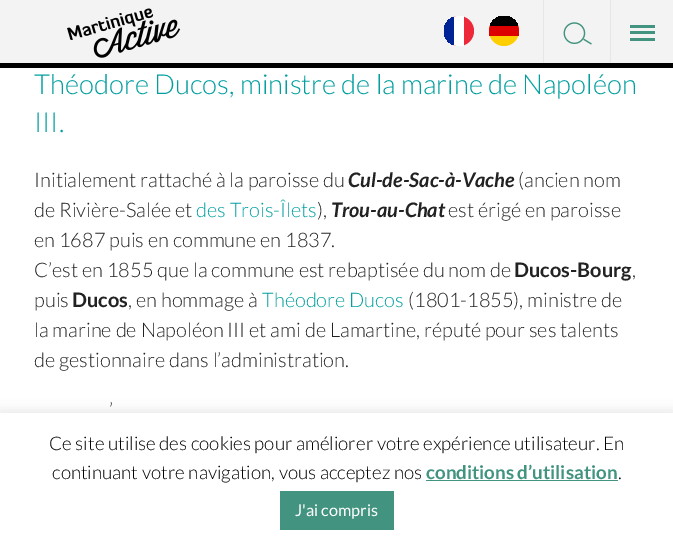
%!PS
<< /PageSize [673 551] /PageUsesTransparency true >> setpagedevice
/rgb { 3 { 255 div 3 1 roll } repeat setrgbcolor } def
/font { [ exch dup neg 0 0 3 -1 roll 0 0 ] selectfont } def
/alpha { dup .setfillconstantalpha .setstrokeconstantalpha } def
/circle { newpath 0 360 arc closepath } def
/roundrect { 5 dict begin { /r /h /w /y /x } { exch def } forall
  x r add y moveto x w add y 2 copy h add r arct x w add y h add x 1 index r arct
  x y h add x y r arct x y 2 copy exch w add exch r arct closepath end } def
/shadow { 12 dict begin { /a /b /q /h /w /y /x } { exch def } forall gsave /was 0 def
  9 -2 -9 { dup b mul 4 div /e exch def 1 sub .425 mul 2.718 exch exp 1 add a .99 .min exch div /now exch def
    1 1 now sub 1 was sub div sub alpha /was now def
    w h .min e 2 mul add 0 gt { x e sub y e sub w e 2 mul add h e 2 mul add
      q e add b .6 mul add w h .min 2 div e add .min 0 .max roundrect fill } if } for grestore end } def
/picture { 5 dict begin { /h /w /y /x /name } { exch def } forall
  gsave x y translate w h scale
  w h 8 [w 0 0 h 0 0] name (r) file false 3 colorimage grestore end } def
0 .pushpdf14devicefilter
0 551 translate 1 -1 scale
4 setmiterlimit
255 255 255 rgb
0 0 673 551 rectfill
[
  [0 0 673 63 243 243 243]
  [0 63 673 5 0 0 0]
  [610 0 1 63 230 230 230]
  [630 38 25 3 66 147 127]
  [630 31 25 3 66 147 127]
  [630 25 25 3 66 147 127]
] { aload pop rgb rectfill } forall
(img/1.rgb) 67 8 114 50 picture
237 41 57 rgb
459 31 15 circle fill
gsave
444 16 30 30 15 roundrect clip newpath
255 255 255 rgb
459 16 moveto 464 16 lineto 464 46 lineto 459 46 lineto 450.5 46 444 39.5 444 31 curveto 444 22.5 450.5 16 459 16 curveto closepath fill
0 35 149 rgb
444 17 10 28 rectfill
grestore
255 206 0 rgb
504 31 15 circle fill
gsave
489 16 30 30 15 roundrect clip newpath
221 0 0 rgb
504 16 moveto 512.5 16 519 22.5 519 31 curveto 519 36 lineto 489 36 lineto 489 31 lineto 489 22.5 495.5 16 504 16 curveto closepath fill
0 0 0 rgb
490 16 28 10 rectfill
grestore
230 230 230 rgb
543 0 1 63 rectfill
(img/2.rgb) 563 22 29 23 picture
172 171 171 rgb
0 411 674 139 0 6 0.3 shadow
[
  [0 413 673 138 255 255 255]
  [426 480 192 1 66 147 127]
  [280 491 114 39 66 147 127]
] { aload pop rgb rectfill } forall
/Lato-Light 27.5 font
1 159 160 rgb
34 94 moveto (Théodore Ducos, ministre de la marine de Napoléon) show
34 132 moveto (III.) show
/Lato-Light 20 font
34 34 34 rgb
34 187 moveto (Initialement rattaché à la paroisse du) show
/Lato-BoldItalic 20 font
348 187 moveto (Cul-de-Sac-à-Vache) show
/Lato-Light 20 font
518 187 moveto (\(ancien nom) show
34 217 moveto (de Rivière-Salée et) show
1 159 160 rgb
196 217 moveto (des Trois-Îlets) show
34 34 34 rgb
317 217 moveto (\),) show
/Lato-BoldItalic 20 font
331 217 moveto (Trou-au-Chat) show
/Lato-Light 20 font
[
  [(est érigé en paroisse) 448 217]
  [(en 1687 puis en commune en 1837.) 34 247]
  [(C’est en 1855 que la commune est rebaptisée du nom de) 34 277]
] { aload pop moveto show } forall
/Lato-Bold 20 font
514 277 moveto (Ducos-Bourg) show
/Lato-Light 20 font
632 277 moveto (,) show
34 307 moveto (puis) show
/Lato-Bold 20 font
72 307 moveto (Ducos) show
/Lato-Light 20 font
128 307 moveto (, en hommage à) show
1 159 160 rgb
262 307 moveto (Théodore Ducos) show
34 34 34 rgb
[
  [(\(1801-1855\), ministre de) 408 307]
  [(la marine de Napoléon III et ami de Lamartine, réputé pour ses talents) 34 337]
  [(de gestionnaire dans l’administration.) 34 367]
  [(’) 109 417]
] { aload pop moveto show } forall
/Lato-Light 18.75 font
0 0 0 rgb
49 450 moveto (Ce site utilise des cookies pour améliorer votre expérience utilisateur. En) show
52 479 moveto (continuant votre navigation, vous acceptez nos) show
/Lato-Bold 18.75 font
66 147 127 rgb
426 479 moveto (conditions d’utilisation) show
/Lato-Light 18.75 font
0 0 0 rgb
618 479 moveto (.) show
/Lato-Regular 16.25 font
255 255 255 rgb
295 516 moveto (J'ai compris) show
.poppdf14devicefilter showpage
